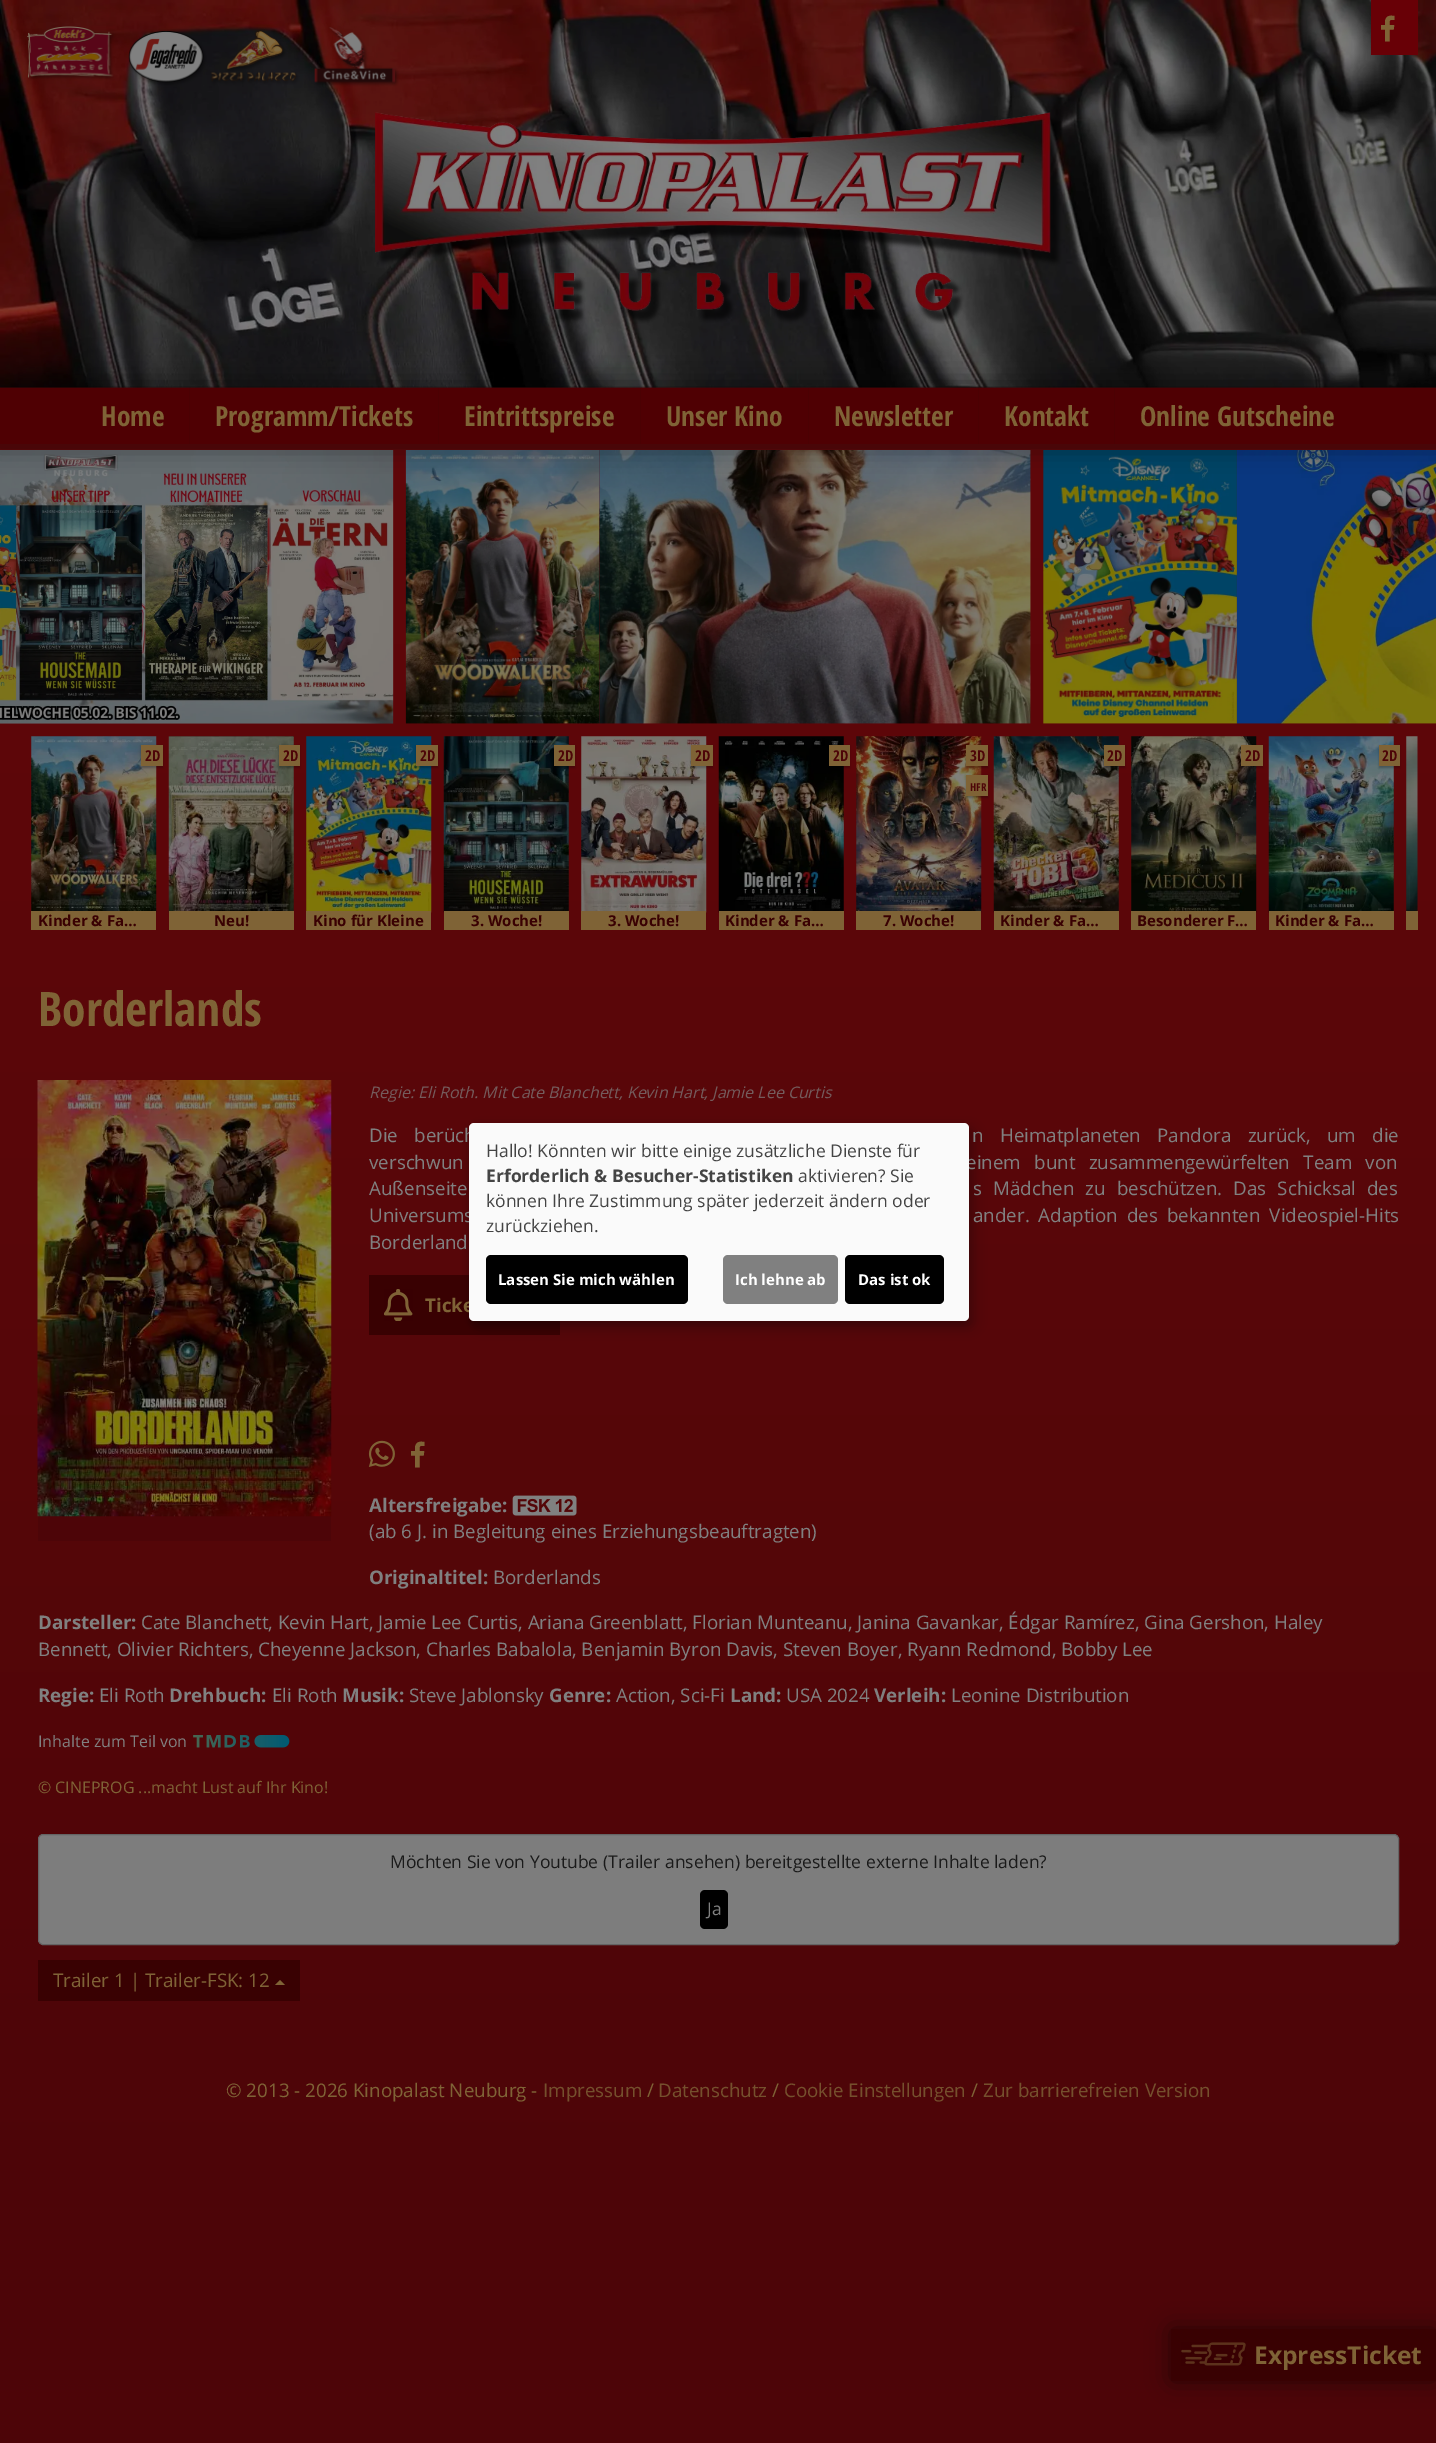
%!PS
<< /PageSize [1436 2443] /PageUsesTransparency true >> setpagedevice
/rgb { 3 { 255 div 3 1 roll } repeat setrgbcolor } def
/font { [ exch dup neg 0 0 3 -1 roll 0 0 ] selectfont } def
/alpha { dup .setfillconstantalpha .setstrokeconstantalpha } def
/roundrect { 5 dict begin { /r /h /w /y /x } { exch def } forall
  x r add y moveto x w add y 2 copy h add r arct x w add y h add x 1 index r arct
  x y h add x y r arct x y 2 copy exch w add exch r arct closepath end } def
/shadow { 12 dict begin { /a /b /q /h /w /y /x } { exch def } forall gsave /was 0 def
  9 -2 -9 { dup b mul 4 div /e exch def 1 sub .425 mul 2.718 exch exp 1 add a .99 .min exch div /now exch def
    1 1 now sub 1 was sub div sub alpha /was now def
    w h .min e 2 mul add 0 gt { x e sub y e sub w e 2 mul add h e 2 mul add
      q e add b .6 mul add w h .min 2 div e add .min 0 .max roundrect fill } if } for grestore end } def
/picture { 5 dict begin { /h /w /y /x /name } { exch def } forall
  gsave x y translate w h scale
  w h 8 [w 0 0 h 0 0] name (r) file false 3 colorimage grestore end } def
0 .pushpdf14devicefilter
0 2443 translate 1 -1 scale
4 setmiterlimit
255 255 255 rgb
0 0 1436 2443 rectfill
gsave 0 387 moveto 1436 387 lineto 1436 2443 lineto 0 2443 lineto closepath clip newpath
<< /ShadingType 2 /ColorSpace /DeviceRGB /Coords [718 0 718 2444] /Extend [true true] /Function << /FunctionType 3 /Domain [0 1] /Functions [<< /FunctionType 2 /Domain [0 1] /C0 [0.384 0.027 0.039] /C1 [0.384 0.027 0.039] /N 1 >> << /FunctionType 2 /Domain [0 1] /C0 [0.384 0.027 0.039] /C1 [0.302 0.02 0.031] /N 1 >> << /FunctionType 2 /Domain [0 1] /C0 [0.302 0.02 0.031] /C1 [0.302 0.02 0.031] /N 1 >>] /Bounds [0.14 0.89] /Encode [0 1 0 1 0 1] >> >> shfill grestore
(img/1.rgb) 0 0 1436 388 picture
(img/2.rgb) 27 26 372 61 picture
104 0 6 rgb
1371 0 47 55 rectfill
(img/3.rgb) 375 112 687 212 picture
(img/4.rgb) 0 450 394 274 picture
(img/5.rgb) 405 450 195 274 picture
(img/6.rgb) 599 450 432 274 picture
(img/7.rgb) 1043 450 194 274 picture
(img/8.rgb) 1236 450 200 274 picture
gsave
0 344 moveto 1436 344 lineto 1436 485 lineto 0 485 lineto closepath 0 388 moveto 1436 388 lineto 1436 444 lineto 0 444 lineto closepath eoclip newpath
0 0 0 rgb
-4 383 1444 63 0 12.5 0.45 shadow
grestore
0.95 alpha
[
  [0 388 1436 56 78 0 3]
] { aload pop rgb rectfill } forall
1 alpha
[
  [189 388 1 56 75 1 3]
  [438 388 1 56 75 1 3]
  [640 388 1 56 75 1 3]
  [808 388 1 56 75 1 3]
  [978 388 1 56 75 1 3]
  [1114 388 1 56 75 1 3]
] { aload pop rgb rectfill } forall
(img/9.rgb) 31 736 126 177 picture
0 0 0 rgb
141 746 22 22 0 1 0.25 shadow
127 99 54 rgb
141 745 22 21 rectfill
31 911 125 19 rectfill
(img/10.rgb) 168 736 126 177 picture
0 0 0 rgb
279 746 21 22 0 1 0.25 shadow
127 99 54 rgb
279 745 21 21 rectfill
169 911 125 19 rectfill
(img/11.rgb) 306 736 126 177 picture
0 0 0 rgb
416 746 22 22 0 1 0.25 shadow
127 99 54 rgb
416 745 22 21 rectfill
306 911 125 19 rectfill
(img/12.rgb) 443 736 126 177 picture
0 0 0 rgb
554 746 21 22 0 1 0.25 shadow
127 99 54 rgb
554 745 21 21 rectfill
444 911 125 19 rectfill
(img/13.rgb) 581 736 126 177 picture
0 0 0 rgb
691 746 22 22 0 1 0.25 shadow
127 99 54 rgb
691 745 22 21 rectfill
581 911 125 19 rectfill
(img/14.rgb) 718 736 126 177 picture
0 0 0 rgb
829 746 21 22 0 1 0.25 shadow
127 99 54 rgb
829 745 21 21 rectfill
719 911 125 19 rectfill
(img/15.rgb) 856 736 126 177 picture
0 0 0 rgb
966 746 22 22 0 1 0.25 shadow
127 99 54 rgb
966 745 22 21 rectfill
0 0 0 rgb
966 776 22 22 0 1 0.25 shadow
127 99 54 rgb
966 775 22 21 rectfill
856 911 125 19 rectfill
(img/16.rgb) 993 736 126 177 picture
0 0 0 rgb
1104 746 21 22 0 1 0.25 shadow
127 99 54 rgb
1104 745 21 21 rectfill
994 911 125 19 rectfill
(img/17.rgb) 1131 736 126 177 picture
0 0 0 rgb
1241 746 22 22 0 1 0.25 shadow
127 99 54 rgb
1241 745 22 21 rectfill
1131 911 125 19 rectfill
(img/18.rgb) 1268 736 126 177 picture
0 0 0 rgb
1379 746 21 22 0 1 0.25 shadow
127 99 54 rgb
1379 745 21 21 rectfill
1269 911 125 19 rectfill
(img/19.rgb) 1406 736 12 175 picture
1406 911 12 19 rectfill
77 5 8 rgb
38 1516 293 25 rectfill
(img/20.rgb) 37 1080 295 437 picture
57 1 2 rgb
369 1275 191 60 rectfill
(img/21.rgb) 384 1289 29 32 picture
(img/22.rgb) 368 1440 27 27 picture
(img/23.rgb) 512 1495 65 21 picture
(img/24.rgb) 193 1735 97 13 picture
125 125 125 rgb
38.5 1834.5 1360 110 4.5 roundrect gsave fill grestore
100 100 100 rgb
stroke
0 0 0 rgb
700 1890 28 39 5 roundrect fill
57 1 2 rgb
38 1960 262 41 rectfill
127 99 54 rgb
285 1985 moveto 275 1985 lineto 280 1980 lineto closepath fill
0 0 0 rgb
475 1129 500 199 5 6 0.19 shadow
469 1128 500 198 5 4 0.2 shadow
1171 2329 265 52 0 12.5 0.5 shadow
57 1 2 rgb
1171 2329 265 52 rectfill
(img/25.rgb) 1181 2342 65 24 picture
/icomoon-Regular 26 font
127 99 54 rgb
1381 38 moveto (:) show
/OpenSansCondensed-Bold 27.5 font
[
  [(Home) 101 426]
  [(Programm/Tickets) 215 426]
  [(Eintrittspreise) 464 426]
  [(Unser Kino) 666 426]
  [(Newsletter) 834 426]
  [(Kontakt) 1004 426]
  [(Online Gutscheine) 1140 426]
] { aload pop moveto show } forall
/OpenSansCondensed-Bold 15 font
77 5 8 rgb
145 761 moveto (2D) show
/OpenSans-Bold 15 font
57 0 2 rgb
38 926 moveto (Kinder & Fa…) show
/OpenSansCondensed-Bold 15 font
77 5 8 rgb
283 761 moveto (2D) show
/OpenSans-Bold 15 font
57 0 2 rgb
214 926 moveto (Neu!) show
/OpenSansCondensed-Bold 15 font
77 5 8 rgb
420 761 moveto (2D) show
/OpenSans-Bold 15 font
57 0 2 rgb
313 926 moveto (Kino für Kleine) show
/OpenSansCondensed-Bold 15 font
77 5 8 rgb
558 761 moveto (2D) show
/OpenSans-Bold 15 font
57 0 2 rgb
471 926 moveto (3. Woche!) show
/OpenSansCondensed-Bold 15 font
77 5 8 rgb
695 761 moveto (2D) show
/OpenSans-Bold 15 font
57 0 2 rgb
608 926 moveto (3. Woche!) show
/OpenSansCondensed-Bold 15 font
77 5 8 rgb
833 761 moveto (2D) show
/OpenSans-Bold 15 font
57 0 2 rgb
725 926 moveto (Kinder & Fa…) show
/OpenSansCondensed-Bold 15 font
77 5 8 rgb
970 761 moveto (3D) show
/OpenSansCondensed-Bold 11 font
970 791 moveto (HFR) show
/OpenSans-Bold 15 font
57 0 2 rgb
883 926 moveto (7. Woche!) show
/OpenSansCondensed-Bold 15 font
77 5 8 rgb
1107 761 moveto (2D) show
/OpenSans-Bold 15 font
57 0 2 rgb
1000 926 moveto (Kinder & Fa…) show
/OpenSansCondensed-Bold 15 font
77 5 8 rgb
1245 761 moveto (2D) show
/OpenSans-Bold 15 font
57 0 2 rgb
1137 926 moveto (Besonderer F…) show
/OpenSansCondensed-Bold 15 font
77 5 8 rgb
1382 761 moveto (2D) show
/OpenSans-Bold 15 font
57 0 2 rgb
1275 926 moveto (Kinder & Fa…) show
/OpenSansCondensed-Bold 47.5 font
127 99 54 rgb
38 1026 moveto (Borderlands) show
/OpenSans-Italic 15.95 font
116 91 92 rgb
369 1098 moveto (Regie: Eli Roth. Mit Cate Blanchett, Kevin Hart, Jamie Lee Curtis) show
/OpenSans-Regular 18.75 font
128 128 128 rgb
369 1142 moveto 11.5 0 32 (Die berüch) widthshow
972 1142 moveto 11.5 0 32 (n Heimatplaneten Pandora zurück, um die) widthshow
369 1169 moveto 8.5 0 32 (verschwun) widthshow
966 1169 moveto 8.5 0 32 (einem bunt zusammengewürfelten Team von) widthshow
369 1195 moveto 6.25 0 32 (Außenseite) widthshow
973 1195 moveto 6.25 0 32 (s Mädchen zu beschützen. Das Schicksal des) widthshow
369 1222 moveto 4 0 32 (Universums) widthshow
973 1222 moveto 4 0 32 (ander. Adaption des bekannten Videospiel-Hits) widthshow
369 1249 moveto (Borderland) show
/OpenSans-Bold 18.75 font
127 99 54 rgb
425 1312 moveto (Ticke) show
/icomoon-Regular 26 font
411 1464 moveto (:) show
/OpenSans-Bold 18.75 font
128 128 128 rgb
369 1512 moveto (Altersfreigabe:) show
/OpenSans-Regular 18.75 font
369 1538 moveto (\(ab 6 J. in Begleitung eines Erziehungsbeauftragten\)) show
/OpenSans-Bold 18.75 font
369 1584 moveto (Originaltitel:) show
/OpenSans-Regular 18.75 font
493 1584 moveto (Borderlands) show
/OpenSans-Bold 18.75 font
38 1629 moveto (Darsteller:) show
/OpenSans-Regular 18.75 font
141 1629 moveto (Cate Blanchett, Kevin Hart, Jamie Lee Curtis, Ariana Greenblatt, Florian Munteanu, Janina Gavankar, Édgar Ramírez, Gina Gershon, Haley) show
38 1656 moveto (Bennett, Olivier Richters, Cheyenne Jackson, Charles Babalola, Benjamin Byron Davis, Steven Boyer, Ryann Redmond, Bobby Lee) show
/OpenSans-Bold 18.75 font
38 1702 moveto (Regie:) show
/OpenSans-Regular 18.75 font
99 1702 moveto (Eli Roth) show
/OpenSans-Bold 18.75 font
169 1702 moveto (Drehbuch:) show
/OpenSans-Regular 18.75 font
272 1702 moveto (Eli Roth) show
/OpenSans-Bold 18.75 font
342 1702 moveto (Musik:) show
/OpenSans-Regular 18.75 font
409 1702 moveto (Steve Jablonsky) show
/OpenSans-Bold 18.75 font
549 1702 moveto (Genre:) show
/OpenSans-Regular 18.75 font
616 1702 moveto (Action, Sci-Fi) show
/OpenSans-Bold 18.75 font
730 1702 moveto (Land:) show
/OpenSans-Regular 18.75 font
786 1702 moveto (USA 2024) show
/OpenSans-Bold 18.75 font
874 1702 moveto (Verleih:) show
/OpenSans-Regular 18.75 font
951 1702 moveto (Leonine Distribution) show
/OpenSans-Regular 15.95 font
38 1747 moveto (Inhalte zum Teil von) show
127 99 54 rgb
38 1793 moveto (© CINEPROG ...macht Lust auf Ihr Kino!) show
/OpenSans-Regular 17.5 font
26 26 26 rgb
390 1868 moveto (Möchten Sie von Youtube \(Trailer ansehen\) bereitgestellte externe Inhalte laden?) show
128 128 128 rgb
707 1915 moveto (Ja) show
/OpenSans-Regular 18.75 font
127 99 54 rgb
53 1987 moveto (Trailer 1 | Trailer-FSK: 12) show
226 2097 moveto (© 2013 - 2026 Kinopalast Neuburg -) show
117 80 45 rgb
543 2097 moveto (Impressum) show
127 99 54 rgb
647 2097 moveto (/) show
117 80 45 rgb
658 2097 moveto (Datenschutz) show
127 99 54 rgb
772 2097 moveto (/) show
117 80 45 rgb
784 2097 moveto (Cookie Einstellungen) show
127 99 54 rgb
971 2097 moveto (/) show
117 80 45 rgb
983 2097 moveto (Zur barrierefreien Version) show
250 250 250 rgb
469 1123 500 198 5 roundrect fill
/OpenSans-Regular 17.5 font
68 68 68 rgb
486 1157 moveto (Hallo! Könnten wir bitte einige zusätzliche Dienste für) show
/OpenSans-Bold 17.5 font
486 1182 moveto (Erforderlich & Besucher-Statistiken) show
/OpenSans-Regular 17.5 font
[
  [(aktivieren? Sie) 798 1182]
  [(können Ihre Zustimmung später jederzeit ändern oder) 486 1207]
  [(zurückziehen.) 486 1232]
] { aload pop moveto show } forall
0 0 0 rgb
486 1255 202 49 5 roundrect fill
/OpenSans-Bold 15 font
255 255 255 rgb
498 1285 moveto (Lassen Sie mich wählen) show
128 128 128 rgb
723 1255 115 49 5 roundrect fill
255 255 255 rgb
735 1285 moveto (Ich lehne ab) show
0 0 0 rgb
845 1255 99 49 5 roundrect fill
255 255 255 rgb
858 1285 moveto (Das ist ok) show
/OpenSans-Bold 24.5 font
127 99 54 rgb
1254 2364 moveto (ExpressTicket) show
.poppdf14devicefilter showpage
